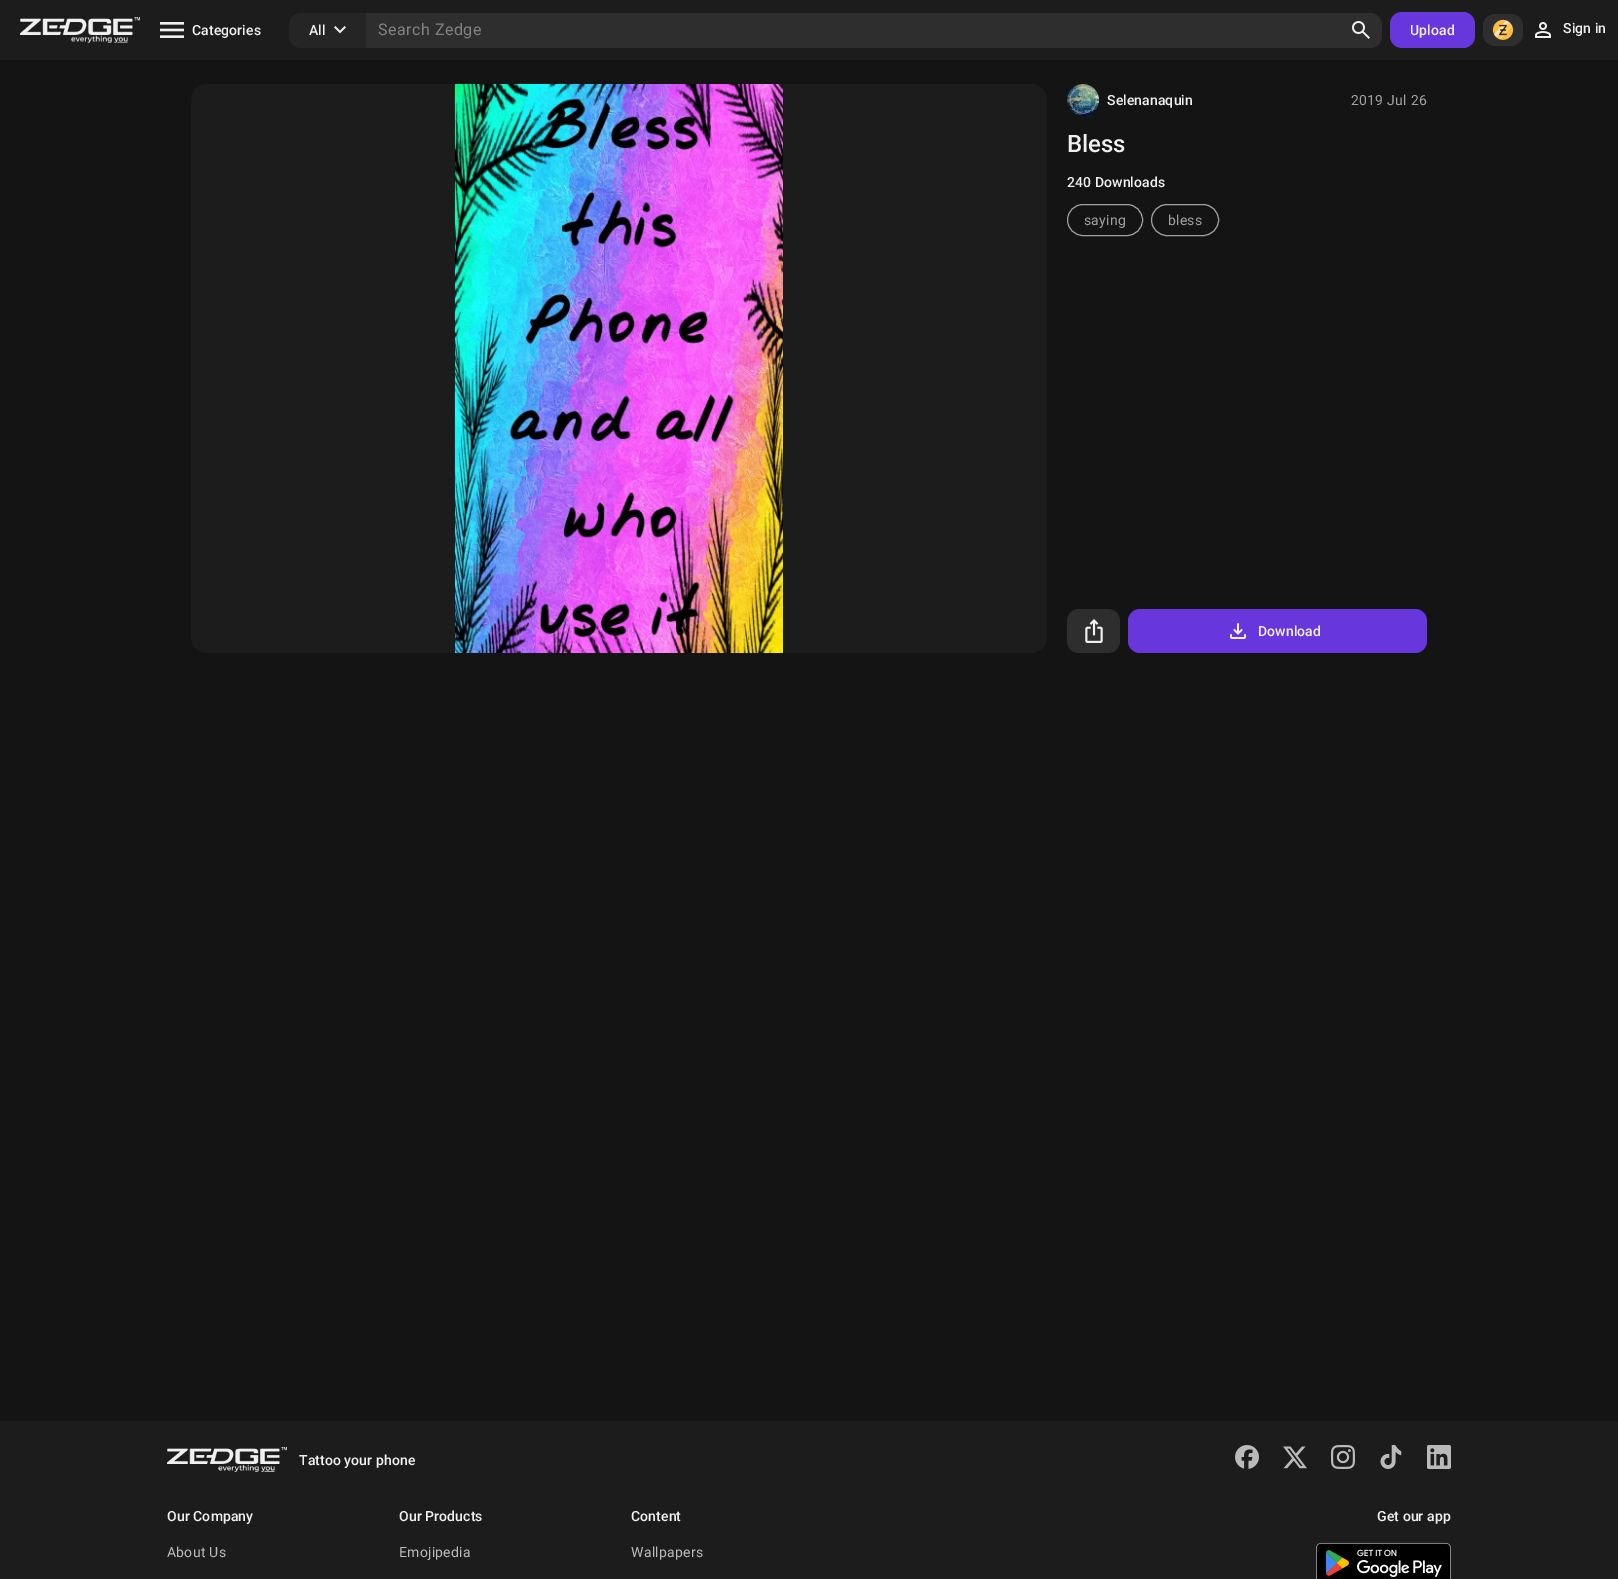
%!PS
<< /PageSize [1618 1579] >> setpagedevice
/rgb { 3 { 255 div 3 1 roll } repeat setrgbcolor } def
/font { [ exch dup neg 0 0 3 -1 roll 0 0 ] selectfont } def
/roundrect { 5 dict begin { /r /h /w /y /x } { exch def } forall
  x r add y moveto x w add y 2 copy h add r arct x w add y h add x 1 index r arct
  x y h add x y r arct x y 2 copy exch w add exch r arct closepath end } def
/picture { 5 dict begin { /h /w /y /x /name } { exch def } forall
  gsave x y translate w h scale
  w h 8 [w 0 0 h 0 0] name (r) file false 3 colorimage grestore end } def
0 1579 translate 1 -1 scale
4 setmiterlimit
20 20 20 rgb
0 0 1618 1579 rectfill
28 28 28 rgb
0 0 1618 60 rectfill
(img/1.rgb) 20 17 120 18 picture
(img/2.rgb) 71 35 57 8 picture
(img/3.rgb) 160 22 24 16 picture
37 37 37 rgb
301 13 moveto 366 13 lineto 366 48 lineto 301 48 lineto 294.5 48 289 42.5 289 36 curveto 289 25 lineto 289 18.5 294.5 13 301 13 curveto closepath fill
(img/4.rgb) 334 26 12 8 picture
46 46 46 rgb
366 13 moveto 1370 13 lineto 1376.5 13 1382 18.5 1382 25 curveto 1382 36 lineto 1382 42.5 1376.5 48 1370 48 curveto 366 48 lineto closepath fill
(img/5.rgb) 1352 21 18 18 picture
104 54 221 rgb
1390 12 85 36 12 roundrect fill
46 46 46 rgb
1483 14 40 32 12 roundrect fill
(img/6.rgb) 1492 19 22 21 picture
(img/7.rgb) 1535 22 16 16 picture
28 28 28 rgb
191 84 856 569 16 roundrect fill
(img/8.rgb) 455 84 328 569 picture
(img/9.rgb) 1067 84 32 32 picture
161 161 161 rgb
1067.5 204.5 75 31 15.5 roundrect stroke
1151.5 204.5 67 31 15.5 roundrect stroke
46 46 46 rgb
1067 609 53 44 12 roundrect fill
(img/10.rgb) 1085 619 18 24 picture
104 54 221 rgb
1128 609 299 44 12 roundrect fill
(img/11.rgb) 1230 623 16 16 picture
28 28 28 rgb
0 1421 1618 158 rectfill
(img/12.rgb) 167 1447 120 17 picture
(img/13.rgb) 218 1464 57 8 picture
(img/14.rgb) 1235 1445 24 24 picture
(img/15.rgb) 1283 1446 24 23 picture
(img/16.rgb) 1331 1445 24 24 picture
(img/17.rgb) 1380 1445 22 24 picture
(img/18.rgb) 1427 1445 24 24 picture
(img/19.rgb) 1316 1542 135 37 picture
/Roboto-Medium 14 font
240 240 240 rgb
192 35 moveto 0.1 0 (Categories) ashow
309 35 moveto 0.1 0 (All) ashow
/Roboto-Regular 16 font
130 130 130 rgb
378 35 moveto 0.5 0 (Search Zedge) ashow
/Roboto-Medium 14 font
240 240 240 rgb
1410 35 moveto 0.1 0 (Upload) ashow
1563 33 moveto 0.1 0 (Sign in) ashow
1107 105 moveto 0.1 0 (Selenanaquin) ashow
/Roboto-Regular 14 font
161 161 161 rgb
1351 105 moveto 0.25 0 (2019 Jul 26) ashow
/Roboto-Medium 24 font
240 240 240 rgb
1067 152 moveto (Bless) show
/Roboto-Medium 14 font
1067 187 moveto 0.1 0 (240 Downloads) ashow
/Roboto-Regular 14 font
161 161 161 rgb
1084 225 moveto 0.25 0 (saying) ashow
1168 225 moveto 0.25 0 (bless) ashow
/Roboto-Medium 14 font
240 240 240 rgb
1258 636 moveto 0.1 0 (Download) ashow
299 1465 moveto 0.1 0 (Tattoo your phone) ashow
167 1521 moveto 0.1 0 (Our Company) ashow
/Roboto-Regular 14 font
187 187 187 rgb
167 1557 moveto 0.25 0 (About Us) ashow
/Roboto-Medium 14 font
240 240 240 rgb
399 1521 moveto 0.1 0 (Our Products) ashow
/Roboto-Regular 14 font
187 187 187 rgb
399 1557 moveto 0.25 0 (Emojipedia) ashow
/Roboto-Medium 14 font
240 240 240 rgb
631 1521 moveto 0.1 0 (Content) ashow
/Roboto-Regular 14 font
187 187 187 rgb
631 1557 moveto 0.25 0 (Wallpapers) ashow
/Roboto-Medium 14 font
240 240 240 rgb
1377 1521 moveto 0.1 0 (Get our app) ashow
showpage
